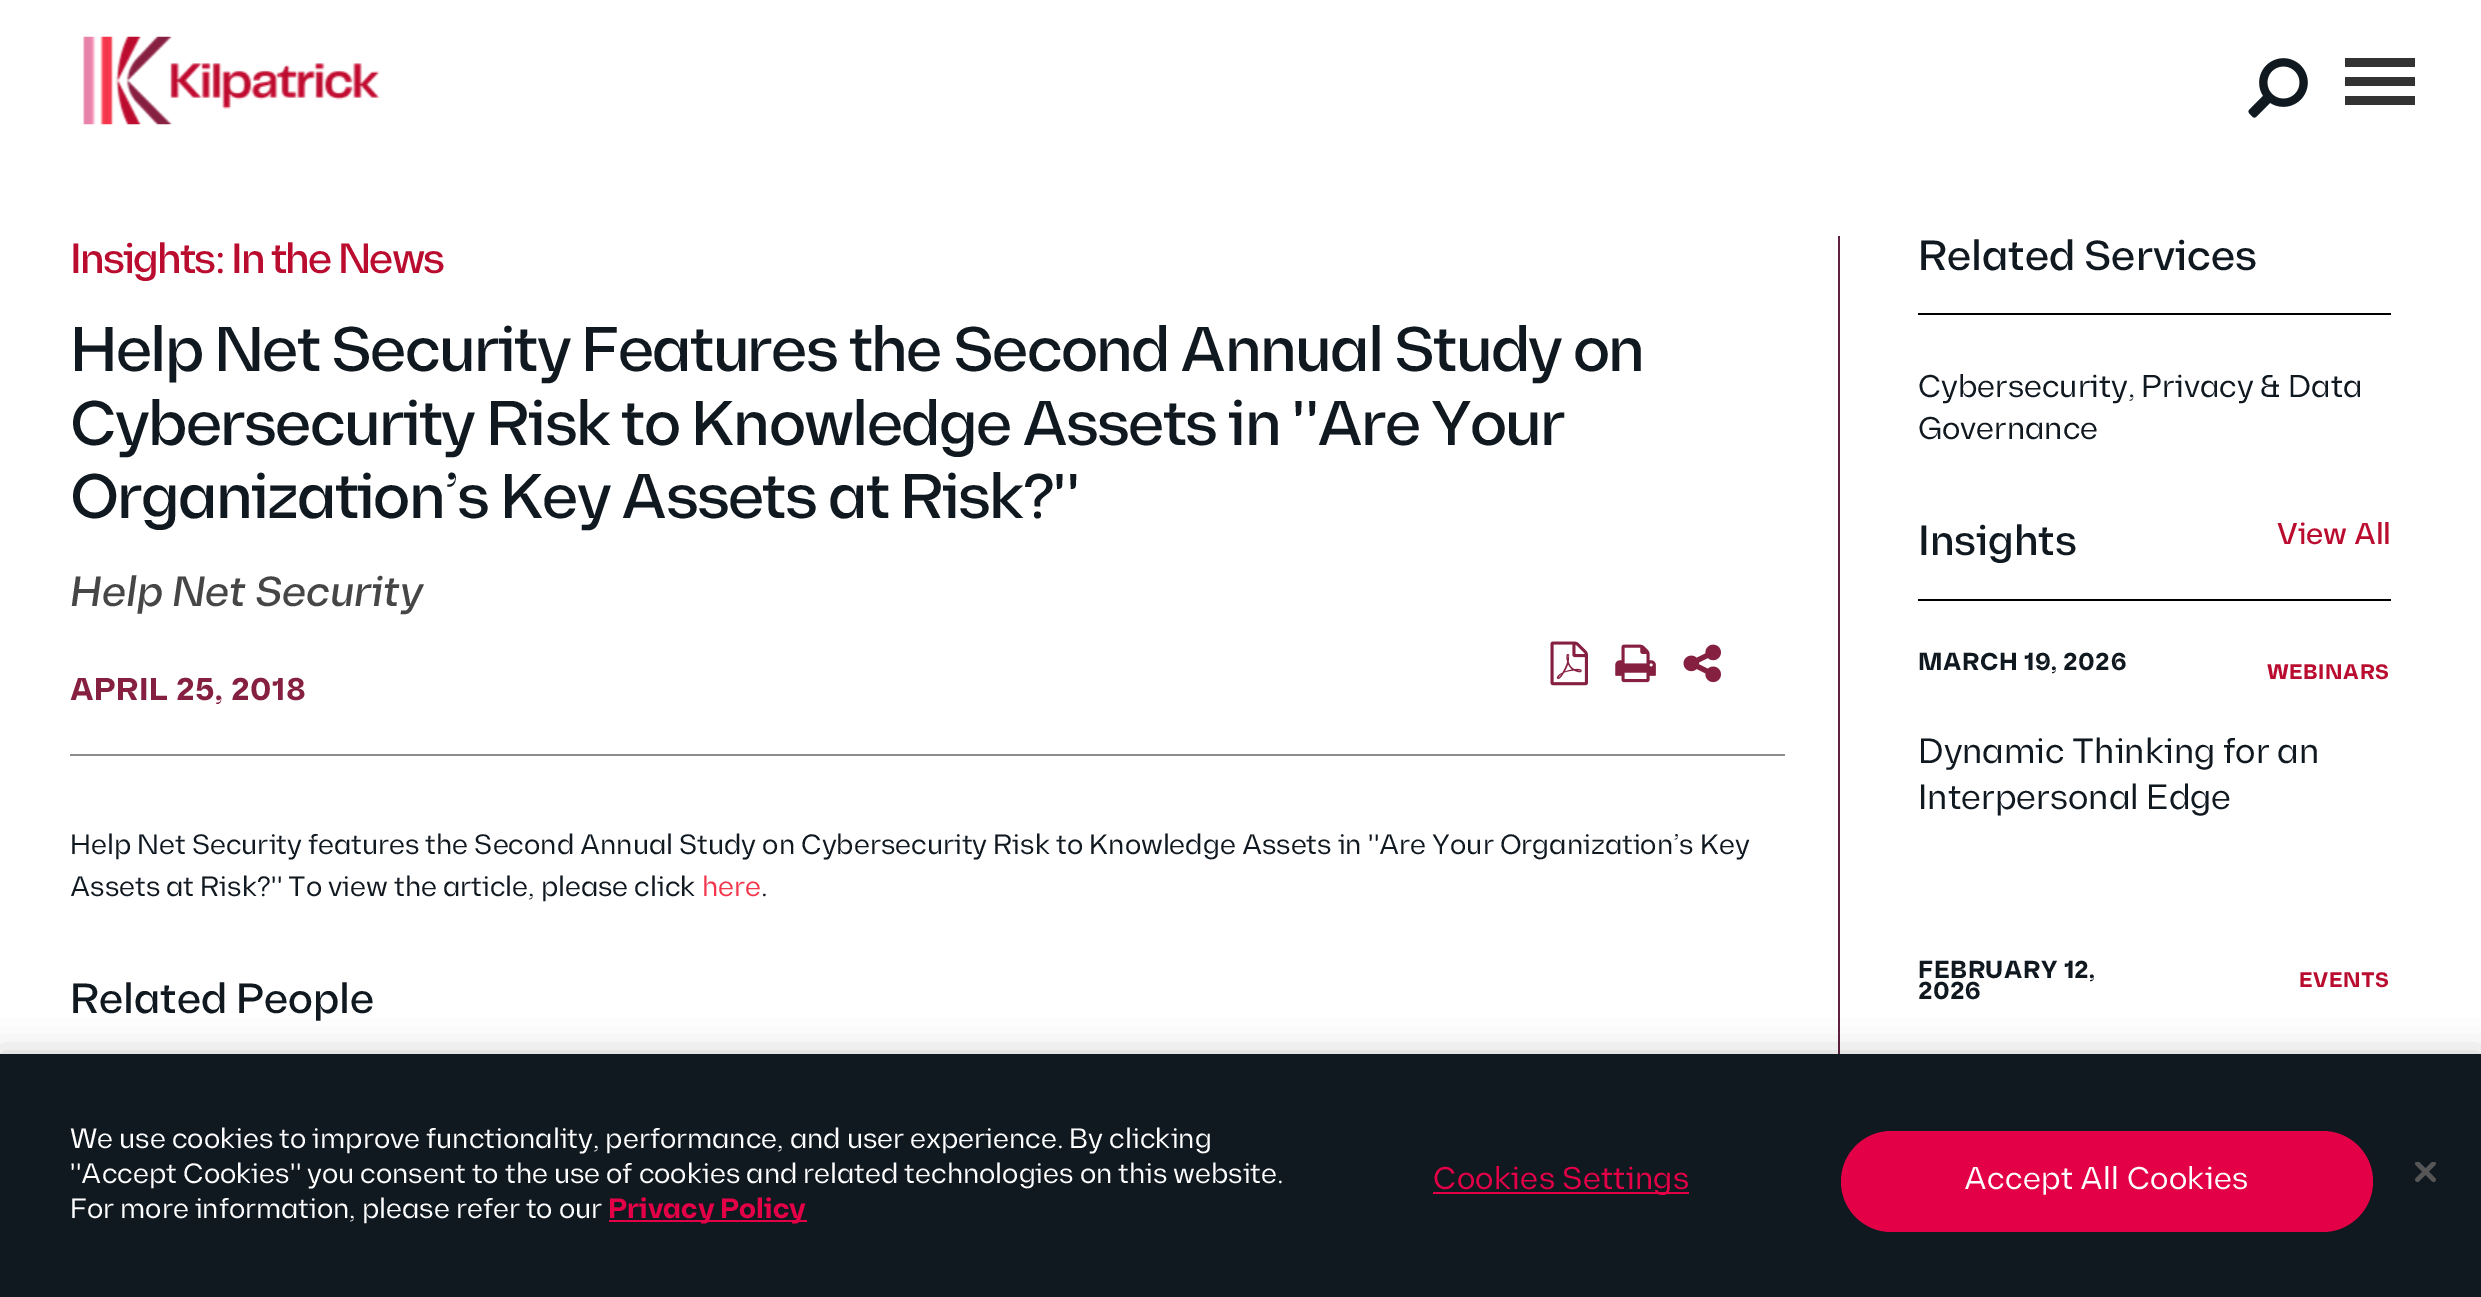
%!PS
<< /PageSize [2481 1297] /PageUsesTransparency true >> setpagedevice
/rgb { 3 { 255 div 3 1 roll } repeat setrgbcolor } def
/font { [ exch dup neg 0 0 3 -1 roll 0 0 ] selectfont } def
/alpha { dup .setfillconstantalpha .setstrokeconstantalpha } def
/roundrect { 5 dict begin { /r /h /w /y /x } { exch def } forall
  x r add y moveto x w add y 2 copy h add r arct x w add y h add x 1 index r arct
  x y h add x y r arct x y 2 copy exch w add exch r arct closepath end } def
/shadow { 12 dict begin { /a /b /q /h /w /y /x } { exch def } forall gsave /was 0 def
  9 -2 -9 { dup b mul 4 div /e exch def 1 sub .425 mul 2.718 exch exp 1 add a .99 .min exch div /now exch def
    1 1 now sub 1 was sub div sub alpha /was now def
    w h .min e 2 mul add 0 gt { x e sub y e sub w e 2 mul add h e 2 mul add
      q e add b .6 mul add w h .min 2 div e add .min 0 .max roundrect fill } if } for grestore end } def
/picture { 5 dict begin { /h /w /y /x /name } { exch def } forall
  gsave x y translate w h scale
  w h 8 [w 0 0 h 0 0] name (r) file false 3 colorimage grestore end } def
0 .pushpdf14devicefilter
0 1297 translate 1 -1 scale
4 setmiterlimit
255 255 255 rgb
0 0 2481 1297 rectfill
(img/1.rgb) 82 36 298 89 picture
(img/2.rgb) 2248 58 60 60 picture
[
  [2345 77 70 9 51 51 51]
  [2345 58 70 9 51 51 51]
  [2345 96 70 9 51 51 51]
  [1838 236 2 818 97 33 65]
  [70 754 1715 2 140 140 140]
] { aload pop rgb rectfill } forall
(img/3.rgb) 1550 641 38 45 picture
(img/4.rgb) 1615 644 41 39 picture
(img/5.rgb) 1683 644 38 39 picture
0 0 0 rgb
1918 313 473 2 rectfill
1918 599 473 2 rectfill
0 1054 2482 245 0 16 0.2 shadow
[
  [0 1054 2481 243 16 24 32]
  [609 1220 198 2 228 0 70]
  [1433 1192 256 2 228 0 70]
] { aload pop rgb rectfill } forall
1841 1131 532 101 50.5 roundrect fill
(img/6.rgb) 2415 1162 21 21 picture
/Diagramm-Medium 42 font
186 12 47 rgb
70 273 moveto -1.75 0 (Insights: In the News) ashow
/Diagramm-Medium 63 font
16 24 32 rgb
70 371 moveto -1.75 0 (Help Net Security Features the Second Annual Study on) ashow
70 445 moveto -1.75 0 (Cybersecurity Risk to Knowledge Assets in "Are Your) ashow
70 518 moveto -1.75 0 (Organization’s Key Assets at Risk?") ashow
/Diagramm-MediumItalic 42 font
70 70 70 rgb
70 606 moveto (Help Net Security) show
/Diagramm-Bold 31.5 font
134 32 65 rgb
70 700 moveto 0.6 0 (APRIL 25, 2018) ashow
/Diagramm-Regular 28 font
16 24 32 rgb
70 854 moveto (Help Net Security features the Second Annual Study on Cybersecurity Risk to Knowledge Assets in "Are Your Organization’s Key) show
70 896 moveto (Assets at Risk?" To view the article, please click) show
244 54 76 rgb
702 896 moveto (here) show
16 24 32 rgb
761 896 moveto (.) show
/Diagramm-Medium 42 font
70 1013 moveto (Related People) show
1918 270 moveto (Related Services) show
/Diagramm-Regular 31.5 font
1918 397 moveto (Cybersecurity, Privacy & Data) show
1918 439 moveto (Governance) show
/Diagramm-Medium 42 font
1918 555 moveto (Insights) show
/Diagramm-Medium 30 font
186 12 47 rgb
2277 544 moveto (View All) show
/Diagramm-Bold 24.5 font
16 24 32 rgb
1918 670 moveto 0.6 0 (MARCH 19, 2026) ashow
/Diagramm-Bold 21 font
186 12 47 rgb
2267 679 moveto 0.6 0 (WEBINARS) ashow
/Diagramm-Regular 35 font
16 24 32 rgb
1918 763 moveto (Dynamic Thinking for an) show
1918 809 moveto (Interpersonal Edge) show
/Diagramm-Bold 24.5 font
1918 978 moveto 0.6 0 (FEBRUARY 12,) ashow
1918 999 moveto 0.6 0 (2026) ashow
/Diagramm-Bold 21 font
186 12 47 rgb
2299 987 moveto 0.6 0 (EVENTS) ashow
/Diagramm-Regular 28 font
255 255 255 rgb
[
  [(We use cookies to improve functionality, performance, and user experience. By clicking) 70 1148]
  [("Accept Cookies" you consent to the use of cookies and related technologies on this website.) 70 1183]
  [(For more information, please refer to our) 70 1218]
] { aload pop moveto show } forall
/Diagramm-Bold 28 font
228 0 70 rgb
608 1218 moveto (Privacy Policy) show
/Diagramm-Regular 31.5 font
1433 1189 moveto 0.3 0 (Cookies Settings) ashow
255 255 255 rgb
1964 1189 moveto 0.3 0 (Accept All Cookies) ashow
.poppdf14devicefilter showpage
